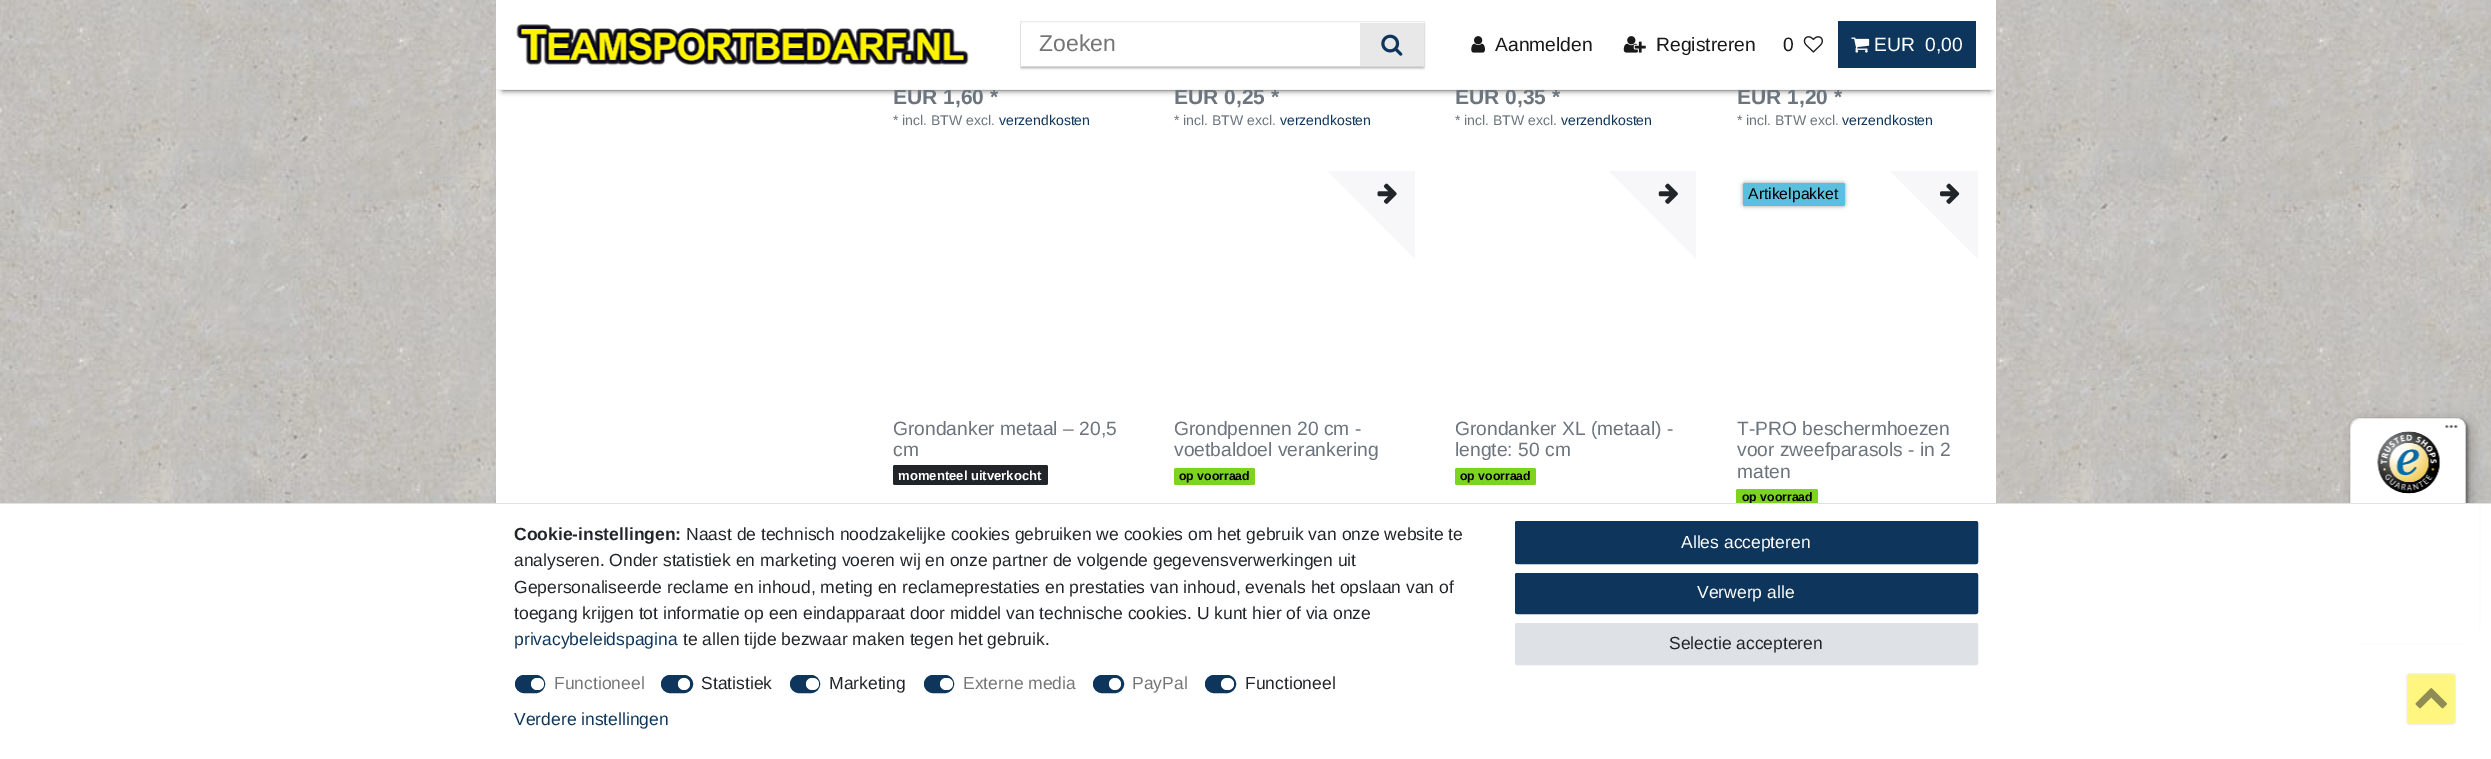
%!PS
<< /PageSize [2491 759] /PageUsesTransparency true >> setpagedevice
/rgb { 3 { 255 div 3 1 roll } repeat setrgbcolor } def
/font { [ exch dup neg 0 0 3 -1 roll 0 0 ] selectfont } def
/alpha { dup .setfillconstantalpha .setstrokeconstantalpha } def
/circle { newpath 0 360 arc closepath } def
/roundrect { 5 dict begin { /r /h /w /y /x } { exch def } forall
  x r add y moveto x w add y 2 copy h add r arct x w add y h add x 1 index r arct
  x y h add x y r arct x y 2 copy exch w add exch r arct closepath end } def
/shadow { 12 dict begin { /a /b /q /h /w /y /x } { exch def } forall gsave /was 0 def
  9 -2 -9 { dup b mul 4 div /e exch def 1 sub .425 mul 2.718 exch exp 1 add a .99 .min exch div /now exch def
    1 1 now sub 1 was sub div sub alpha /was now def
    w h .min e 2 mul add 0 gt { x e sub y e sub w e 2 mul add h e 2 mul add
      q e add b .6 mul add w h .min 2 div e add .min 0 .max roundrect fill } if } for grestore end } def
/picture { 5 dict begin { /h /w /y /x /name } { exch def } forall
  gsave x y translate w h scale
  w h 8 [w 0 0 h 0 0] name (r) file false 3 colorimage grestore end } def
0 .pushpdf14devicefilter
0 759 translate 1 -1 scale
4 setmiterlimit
255 255 255 rgb
0 0 2491 759 rectfill
(img/1.rgb) 0 0 2491 503 picture
496 90 1500 413 rectfill
51 51 51 rgb
503 13 1487 77 0 3 1 shadow
255 255 255 rgb
496 0 1500 89 rectfill
(img/2.rgb) 516 24 453 42 picture
235 235 235 rgb
1020.5 21.5 404 46 rectstroke
0 0 0 rgb
1021 25 403 44 0 1 0.16 shadow
255 255 255 rgb
1021 24 339 42 rectfill
232 232 232 rgb
1360 23 64 43 rectfill
(img/3.rgb) 1381 34 22 22 picture
(img/4.rgb) 1471 36 14 17 picture
(img/5.rgb) 1623 36 23 17 picture
(img/6.rgb) 1803 36 20 17 picture
14 53 92 rgb
1838 21 138 47 rectfill
(img/7.rgb) 1851 37 19 16 picture
33 37 41 rgb
893 465 155 20 2 roundrect fill
247 247 249 rgb
1415 171 moveto 1415 259 lineto 1328 171 lineto closepath fill
(img/8.rgb) 1377 183 20 21 picture
126 211 33 rgb
1174 468 81 17 2 roundrect fill
247 247 249 rgb
1696 171 moveto 1696 259 lineto 1609 171 lineto closepath fill
(img/9.rgb) 1658 183 20 21 picture
126 211 33 rgb
1455 468 81 17 2 roundrect fill
0 0 0 rgb
1743 183 102 23 2 2 0.4 shadow
91 192 222 rgb
1743 183 102 23 2 roundrect fill
247 247 249 rgb
1978 171 moveto 1978 259 lineto 1890 171 lineto closepath fill
(img/10.rgb) 1940 183 20 21 picture
126 211 33 rgb
1736 489 82 17 2 roundrect fill
0 0 0 rgb
2354 421 116 213 10 5 0.15 shadow
2351 419 117 212 10 1 0.15 shadow
0.1 alpha
2361 419 moveto 2458 419 lineto 2462 420 lineto 2460 419 2458 418 2456 418 curveto 2360 418 lineto 2354 418 2350 422 2350 428 curveto 2350 620 lineto 2350 623 2351 626 2353 628 curveto 2352 626 2351 624 2351 621 curveto 2351 429 lineto 2351 423 2356 419 2361 419 curveto closepath fill
1 alpha
2354 421 116 213 10 5 0.15 shadow
2351 419 117 212 10 1 0.15 shadow
255 255 255 rgb
2350 418 116 212 10 roundrect fill
0.1 alpha
0 0 0 rgb
2361 419 moveto 2458 419 lineto 2462 420 lineto 2460 419 2458 418 2456 418 curveto 2360 418 lineto 2354 418 2350 422 2350 428 curveto 2350 620 lineto 2350 623 2351 626 2353 628 curveto 2352 626 2351 624 2351 621 curveto 2351 429 lineto 2351 423 2356 419 2361 419 curveto closepath fill
0.2 alpha
2352 627 moveto 2354 629 2357 630 2360 630 curveto 2456 630 lineto 2462 630 2466 626 2466 620 curveto 2466 428 lineto 2466 426 2465 424 2464 422 curveto 2465 426 lineto 2465 619 lineto 2465 624 2461 629 2455 629 curveto 2359 629 lineto 2356 629 2354 628 2352 627 curveto closepath fill
1 alpha
255 255 255 rgb
1736 504 743 139 rectfill
14 53 92 rgb
515.5 675.5 29 17 8.5 roundrect gsave fill grestore
stroke
255 255 255 rgb
531 678 13 12 6 roundrect fill
14 53 92 rgb
661.5 675.5 31 17 8.5 roundrect gsave fill grestore
stroke
255 255 255 rgb
684 684 6 circle fill
14 53 92 rgb
790.5 675.5 29 17 8.5 roundrect gsave fill grestore
stroke
255 255 255 rgb
806 678 13 12 6 roundrect fill
14 53 92 rgb
924.5 675.5 29 17 8.5 roundrect gsave fill grestore
stroke
255 255 255 rgb
940 678 13 12 6 roundrect fill
14 53 92 rgb
1093.5 675.5 30 17 8.5 roundrect gsave fill grestore
stroke
255 255 255 rgb
1115 684 6 circle fill
14 53 92 rgb
1205.5 675.5 30 17 8.5 roundrect gsave fill grestore
stroke
255 255 255 rgb
1221 678 13 12 6 roundrect fill
14 53 92 rgb
1515.5 521.5 462 42 1.5 roundrect gsave fill grestore
stroke
1515.5 573.5 462 40 1.5 roundrect gsave fill grestore
stroke
222 226 230 rgb
1515.5 623.5 462 41 1.5 roundrect gsave fill grestore
stroke
255 246 128 rgb
2406.5 673.5 49 51 3.5 roundrect gsave fill grestore
239 241 243 rgb
stroke
(img/11.rgb) 2415 688 32 21 picture
(img/12.rgb) 2377 431 64 63 picture
(img/13.rgb) 2445 425 13 3 picture
/LiberationSans-Regular 23 font
117 117 117 rgb
1039 51 moveto (Zoeken) show
/LiberationSans-Regular 19.25 font
25 25 25 rgb
[
  [(Aanmelden) 1495 51]
  [(Registreren) 1656 51]
  [(0) 1783 51]
] { aload pop moveto show } forall
255 255 255 rgb
1874 51 moveto (EUR  0,00) show
/LiberationSans-Bold 21 font
108 117 125 rgb
893 104 moveto (EUR 1,60 *) show
/LiberationSans-Regular 14 font
893 125 moveto (* incl. BTW excl.) show
14 53 92 rgb
999 125 moveto (verzendkosten) show
/LiberationSans-Bold 21 font
108 117 125 rgb
1174 104 moveto (EUR 0,25 *) show
/LiberationSans-Regular 14 font
1174 125 moveto (* incl. BTW excl.) show
14 53 92 rgb
1280 125 moveto (verzendkosten) show
/LiberationSans-Bold 21 font
108 117 125 rgb
1455 104 moveto (EUR 0,35 *) show
/LiberationSans-Regular 14 font
1455 125 moveto (* incl. BTW excl.) show
14 53 92 rgb
1561 125 moveto (verzendkosten) show
/LiberationSans-Bold 21 font
108 117 125 rgb
1737 104 moveto (EUR 1,20 *) show
243 243 243 rgb
496 89 1500 1 rectfill
/LiberationSans-Regular 14 font
108 117 125 rgb
1737 125 moveto (* incl. BTW excl.) show
14 53 92 rgb
1842 125 moveto (verzendkosten) show
/LiberationSans-Regular 19.25 font
108 117 125 rgb
893 435 moveto (Grondanker metaal – 20,5) show
893 456 moveto (cm) show
/LiberationSans-Bold 13.1 font
255 255 255 rgb
898 480 moveto (momenteel uitverkocht) show
/LiberationSans-Regular 19.25 font
108 117 125 rgb
1174 435 moveto (Grondpennen 20 cm -) show
1174 456 moveto (voetbaldoel verankering) show
/LiberationSans-Bold 12.25 font
0 0 0 rgb
1179 480 moveto (op voorraad) show
/LiberationSans-Regular 19.25 font
108 117 125 rgb
1455 435 moveto (Grondanker XL \(metaal\) -) show
1455 456 moveto (lengte: 50 cm) show
/LiberationSans-Bold 12.25 font
0 0 0 rgb
1460 480 moveto (op voorraad) show
/LiberationSans-Regular 15.75 font
1748 199 moveto (Artikelpakket) show
/LiberationSans-Regular 19.25 font
108 117 125 rgb
[
  [(T-PRO beschermhoezen) 1737 435]
  [(voor zweefparasols - in 2) 1737 456]
  [(maten) 1737 478]
] { aload pop moveto show } forall
/LiberationSans-Bold 12.25 font
0 0 0 rgb
1742 501 moveto (op voorraad) show
222 226 230 rgb
0 503 2491 1 rectfill
/LiberationSans-Bold 17.5 font
33 37 41 rgb
514 540 moveto (Cookie-instellingen:) show
/LiberationSans-Regular 17.5 font
[
  [(Naast de technisch noodzakelijke cookies gebruiken we cookies om het gebruik van onze website te) 686 540]
  [(analyseren. Onder statistiek en marketing voeren wij en onze partner de volgende gegevensverwerkingen uit) 514 566]
  [(Gepersonaliseerde reclame en inhoud, meting en reclameprestaties en prestaties van inhoud, evenals het opslaan van of) 514 593]
  [(toegang krijgen tot informatie op een eindapparaat door middel van technische cookies. U kunt hier of via onze) 514 619]
] { aload pop moveto show } forall
14 53 92 rgb
514 645 moveto (privacybeleidspagina) show
33 37 41 rgb
683 645 moveto (te allen tijde bezwaar maken tegen het gebruik.) show
117 117 117 rgb
554 689 moveto (Functioneel) show
33 37 41 rgb
701 689 moveto (Statistiek) show
829 689 moveto (Marketing) show
117 117 117 rgb
963 689 moveto (Externe media) show
1132 689 moveto (PayPal) show
33 37 41 rgb
1245 689 moveto (Functioneel) show
14 53 92 rgb
514 725 moveto (Verdere instellingen) show
255 255 255 rgb
1681 548 moveto (Alles accepteren) show
1697 598 moveto (Verwerp alle) show
33 37 41 rgb
1669 649 moveto (Selectie accepteren) show
.poppdf14devicefilter showpage
